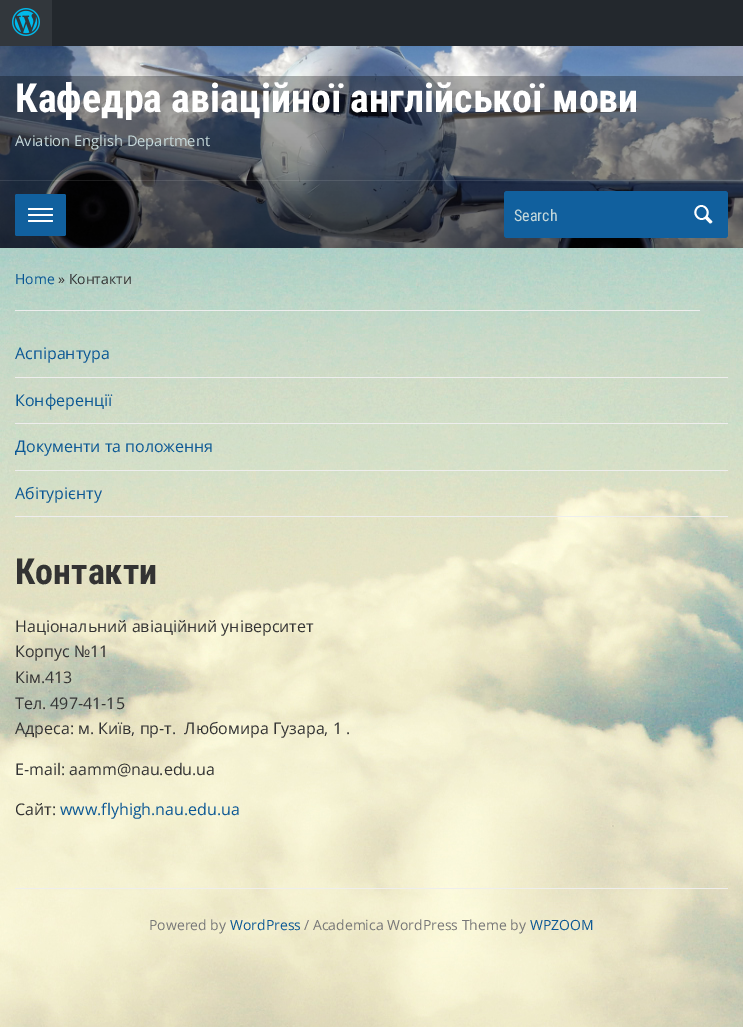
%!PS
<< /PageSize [743 1027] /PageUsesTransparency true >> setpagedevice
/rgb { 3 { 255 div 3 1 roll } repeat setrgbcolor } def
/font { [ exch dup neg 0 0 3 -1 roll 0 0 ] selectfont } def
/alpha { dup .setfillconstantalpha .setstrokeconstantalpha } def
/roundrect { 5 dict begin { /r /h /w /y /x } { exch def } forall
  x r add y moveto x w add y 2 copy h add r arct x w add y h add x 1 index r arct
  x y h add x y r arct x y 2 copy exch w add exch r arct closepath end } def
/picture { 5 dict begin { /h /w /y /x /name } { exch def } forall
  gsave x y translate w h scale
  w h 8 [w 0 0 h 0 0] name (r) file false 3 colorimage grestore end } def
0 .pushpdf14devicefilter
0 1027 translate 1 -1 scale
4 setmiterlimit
255 255 255 rgb
0 0 743 1027 rectfill
(img/1.rgb) 0 248 743 779 picture
35 40 45 rgb
52 0 691 46 rectfill
50 55 60 rgb
0 0 52 46 rectfill
(img/2.rgb) 12 8 28 28 picture
(img/3.rgb) 0 46 743 202 picture
0.1 alpha
255 255 255 rgb
0 180 743 1 rectfill
1 alpha
17 96 158 rgb
15 194 51 42 2 roundrect fill
255 255 255 rgb
28 208 25 2 1 roundrect fill
28 214 25 2 1 roundrect fill
28 220 25 2 1 roundrect fill
17 96 158 rgb
504 191 224 47 3 roundrect fill
(img/4.rgb) 694 205 19 19 picture
[
  [15 310 685 1 238 238 238]
  [15 377 713 1 238 238 238]
  [15 423 713 1 238 238 238]
  [15 470 713 1 238 238 238]
  [15 516 713 1 238 238 238]
  [15 888 713 1 238 238 238]
] { aload pop rgb rectfill } forall
/RobotoCondensed-Bold 40 font
255 255 255 rgb
15 112 moveto (Кафедра авіаційної англійської мови) show
/OpenSans-Regular 14.7 font
198 217 219 rgb
15 146 moveto (Aviation English Department) show
/RobotoCondensed-Regular 16 font
514 221 moveto (Search) show
/OpenSans-Regular 14 font
10 87 148 rgb
15 284 moveto (Home) show
51 51 51 rgb
58 284 moveto (» Контакти) show
/OpenSans-Regular 16 font
10 87 148 rgb
[
  [(Аспірантура) 15 359]
  [(Конференції) 15 406]
  [(Документи та положення) 15 452]
  [(Абітурієнту) 15 499]
] { aload pop moveto show } forall
/RobotoCondensed-Bold 36 font
51 51 51 rgb
15 584 moveto (Контакти) show
/OpenSans-Regular 16 font
[
  [(Національний авіаційний університет) 15 632]
  [(Корпус №11) 15 657]
  [(Кім.413) 15 683]
  [(Тел. 497-41-15) 15 709]
  [(Адреса: м. Київ, пр-т.  Любомира Гузара, 1 .) 15 734]
  [(E-mail: aamm@nau.edu.ua) 15 775]
  [(Сайт:) 15 815]
] { aload pop moveto show } forall
10 87 148 rgb
60 815 moveto (www.flyhigh.nau.edu.ua) show
/OpenSans-Regular 14 font
119 119 119 rgb
149 930 moveto (Powered by) show
10 87 148 rgb
230 930 moveto (WordPress) show
119 119 119 rgb
304 930 moveto (/ Academica WordPress Theme by) show
10 87 148 rgb
530 930 moveto (WPZOOM) show
.poppdf14devicefilter showpage
